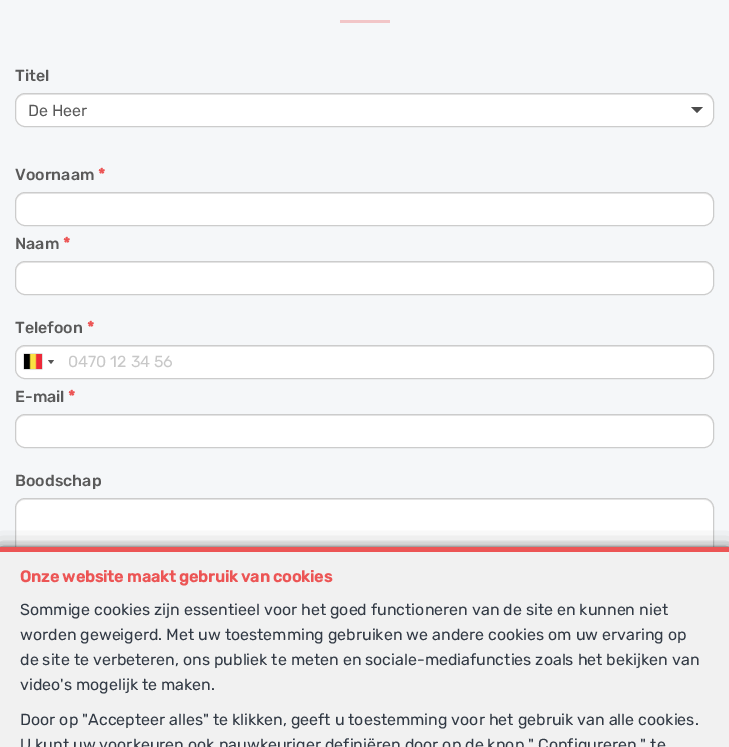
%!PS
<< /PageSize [729 747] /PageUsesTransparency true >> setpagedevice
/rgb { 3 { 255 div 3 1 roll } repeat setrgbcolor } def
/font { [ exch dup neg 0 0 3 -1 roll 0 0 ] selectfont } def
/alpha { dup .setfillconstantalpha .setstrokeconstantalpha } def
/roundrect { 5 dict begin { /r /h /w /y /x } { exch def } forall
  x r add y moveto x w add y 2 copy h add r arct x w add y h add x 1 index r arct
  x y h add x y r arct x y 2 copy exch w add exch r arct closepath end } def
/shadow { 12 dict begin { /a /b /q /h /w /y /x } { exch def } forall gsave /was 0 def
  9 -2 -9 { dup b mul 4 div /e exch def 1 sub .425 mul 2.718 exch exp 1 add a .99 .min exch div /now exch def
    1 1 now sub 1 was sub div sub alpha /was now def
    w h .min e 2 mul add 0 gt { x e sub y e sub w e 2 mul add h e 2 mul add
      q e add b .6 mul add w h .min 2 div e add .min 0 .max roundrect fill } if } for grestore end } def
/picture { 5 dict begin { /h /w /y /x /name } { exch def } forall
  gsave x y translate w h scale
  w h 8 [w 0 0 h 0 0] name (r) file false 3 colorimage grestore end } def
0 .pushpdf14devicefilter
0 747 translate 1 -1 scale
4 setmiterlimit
245 247 249 rgb
0 0 729 747 rectfill
242 198 200 rgb
340 20 50 3 rectfill
255 255 255 rgb
15 93 699 34 10 roundrect fill
(img/1.rgb) 691 107 12 6 picture
236 236 236 rgb
25 95 moveto 704 95 lineto 709 95 713 99 713 104 curveto 713 99 710 94 704 94 curveto 25 94 lineto 19 94 16 99 16 104 curveto 16 99 20 95 25 95 curveto closepath fill
204 204 204 rgb
15.5 93.5 698 33 9.5 roundrect stroke
255 255 255 rgb
15 192 699 34 10 roundrect fill
236 236 236 rgb
25 194 moveto 704 194 lineto 709 194 713 198 713 203 curveto 713 198 710 193 704 193 curveto 25 193 lineto 19 193 16 198 16 203 curveto 16 198 20 194 25 194 curveto closepath fill
204 204 204 rgb
15.5 192.5 698 33 9.5 roundrect stroke
255 255 255 rgb
15 261 699 34 10 roundrect fill
236 236 236 rgb
25 263 moveto 704 263 lineto 709 263 713 267 713 272 curveto 713 267 710 262 704 262 curveto 25 262 lineto 19 262 16 267 16 272 curveto 16 267 20 263 25 263 curveto closepath fill
204 204 204 rgb
15.5 261.5 698 33 9.5 roundrect stroke
255 255 255 rgb
15 345 699 34 10 roundrect fill
236 236 236 rgb
25 347 moveto 704 347 lineto 709 347 713 351 713 356 curveto 713 351 710 346 704 346 curveto 25 346 lineto 19 346 16 351 16 356 curveto 16 351 20 347 25 347 curveto closepath fill
204 204 204 rgb
15.5 345.5 698 33 9.5 roundrect stroke
136 136 136 rgb
24 354 18 15 0 0.5 1 shadow
(img/2.rgb) 24 354 18 15 picture
85 85 85 rgb
48 360 moveto 54 360 lineto 51 364 lineto closepath fill
255 255 255 rgb
15 414 699 34 10 roundrect fill
236 236 236 rgb
25 416 moveto 704 416 lineto 709 416 713 420 713 425 curveto 713 420 710 415 704 415 curveto 25 415 lineto 19 415 16 420 16 425 curveto 16 420 20 416 25 416 curveto closepath fill
204 204 204 rgb
15.5 414.5 698 33 9.5 roundrect stroke
255 255 255 rgb
15 498 699 128 10 roundrect fill
236 236 236 rgb
25 500 moveto 704 500 lineto 709 500 713 504 713 509 curveto 713 504 710 499 704 499 curveto 25 499 lineto 19 499 16 504 16 509 curveto 16 504 20 500 25 500 curveto closepath fill
204 204 204 rgb
15.5 498.5 698 127 9.5 roundrect stroke
0 0 0 rgb
0 553 729 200 0 10 0.9 shadow
0 551 729 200 0 4 0.9 shadow
241 241 241 rgb
0 552 729 195 rectfill
236 85 85 rgb
0 547 729 5 rectfill
/Rubik-Medium 16 font
90 90 90 rgb
15 81 moveto (Titel) show
/Rubik-Regular 16 font
28 116 moveto (De Heer) show
/Rubik-Medium 16 font
15 180 moveto (Voornaam) show
/Rubik-Bold 16 font
236 85 85 rgb
98 180 moveto (*) show
/Rubik-Medium 16 font
90 90 90 rgb
15 249 moveto (Naam) show
/Rubik-Bold 16 font
236 85 85 rgb
63 249 moveto (*) show
/Rubik-Medium 16 font
90 90 90 rgb
15 333 moveto (Telefoon) show
/Rubik-Bold 16 font
236 85 85 rgb
87 333 moveto (*) show
/Rubik-Regular 16 font
200 200 200 rgb
68 367 moveto (0470 12 34 56) show
/Rubik-Medium 16 font
90 90 90 rgb
15 402 moveto (E-mail) show
/Rubik-Bold 16 font
236 85 85 rgb
68 402 moveto (*) show
/Rubik-Medium 16 font
90 90 90 rgb
15 486 moveto (Boodschap) show
/Rubik-Bold 16 font
236 85 85 rgb
20 582 moveto (Onze website maakt gebruik van cookies) show
/Rubik-Regular 16 font
50 58 69 rgb
[
  [(Sommige cookies zijn essentieel voor het goed functioneren van de site en kunnen niet) 20 615]
  [(worden geweigerd. Met uw toestemming gebruiken we andere cookies om uw ervaring op) 20 640]
  [(de site te verbeteren, ons publiek te meten en sociale-mediafuncties zoals het bekijken van) 20 665]
  [(video's mogelijk te maken.) 20 690]
  [(Door op "Accepteer alles" te klikken, geeft u toestemming voor het gebruik van alle cookies.) 20 725]
  [(U kunt uw voorkeuren ook nauwkeuriger definiëren door op de knop " Configureren " te) 20 750]
] { aload pop moveto show } forall
.poppdf14devicefilter showpage
